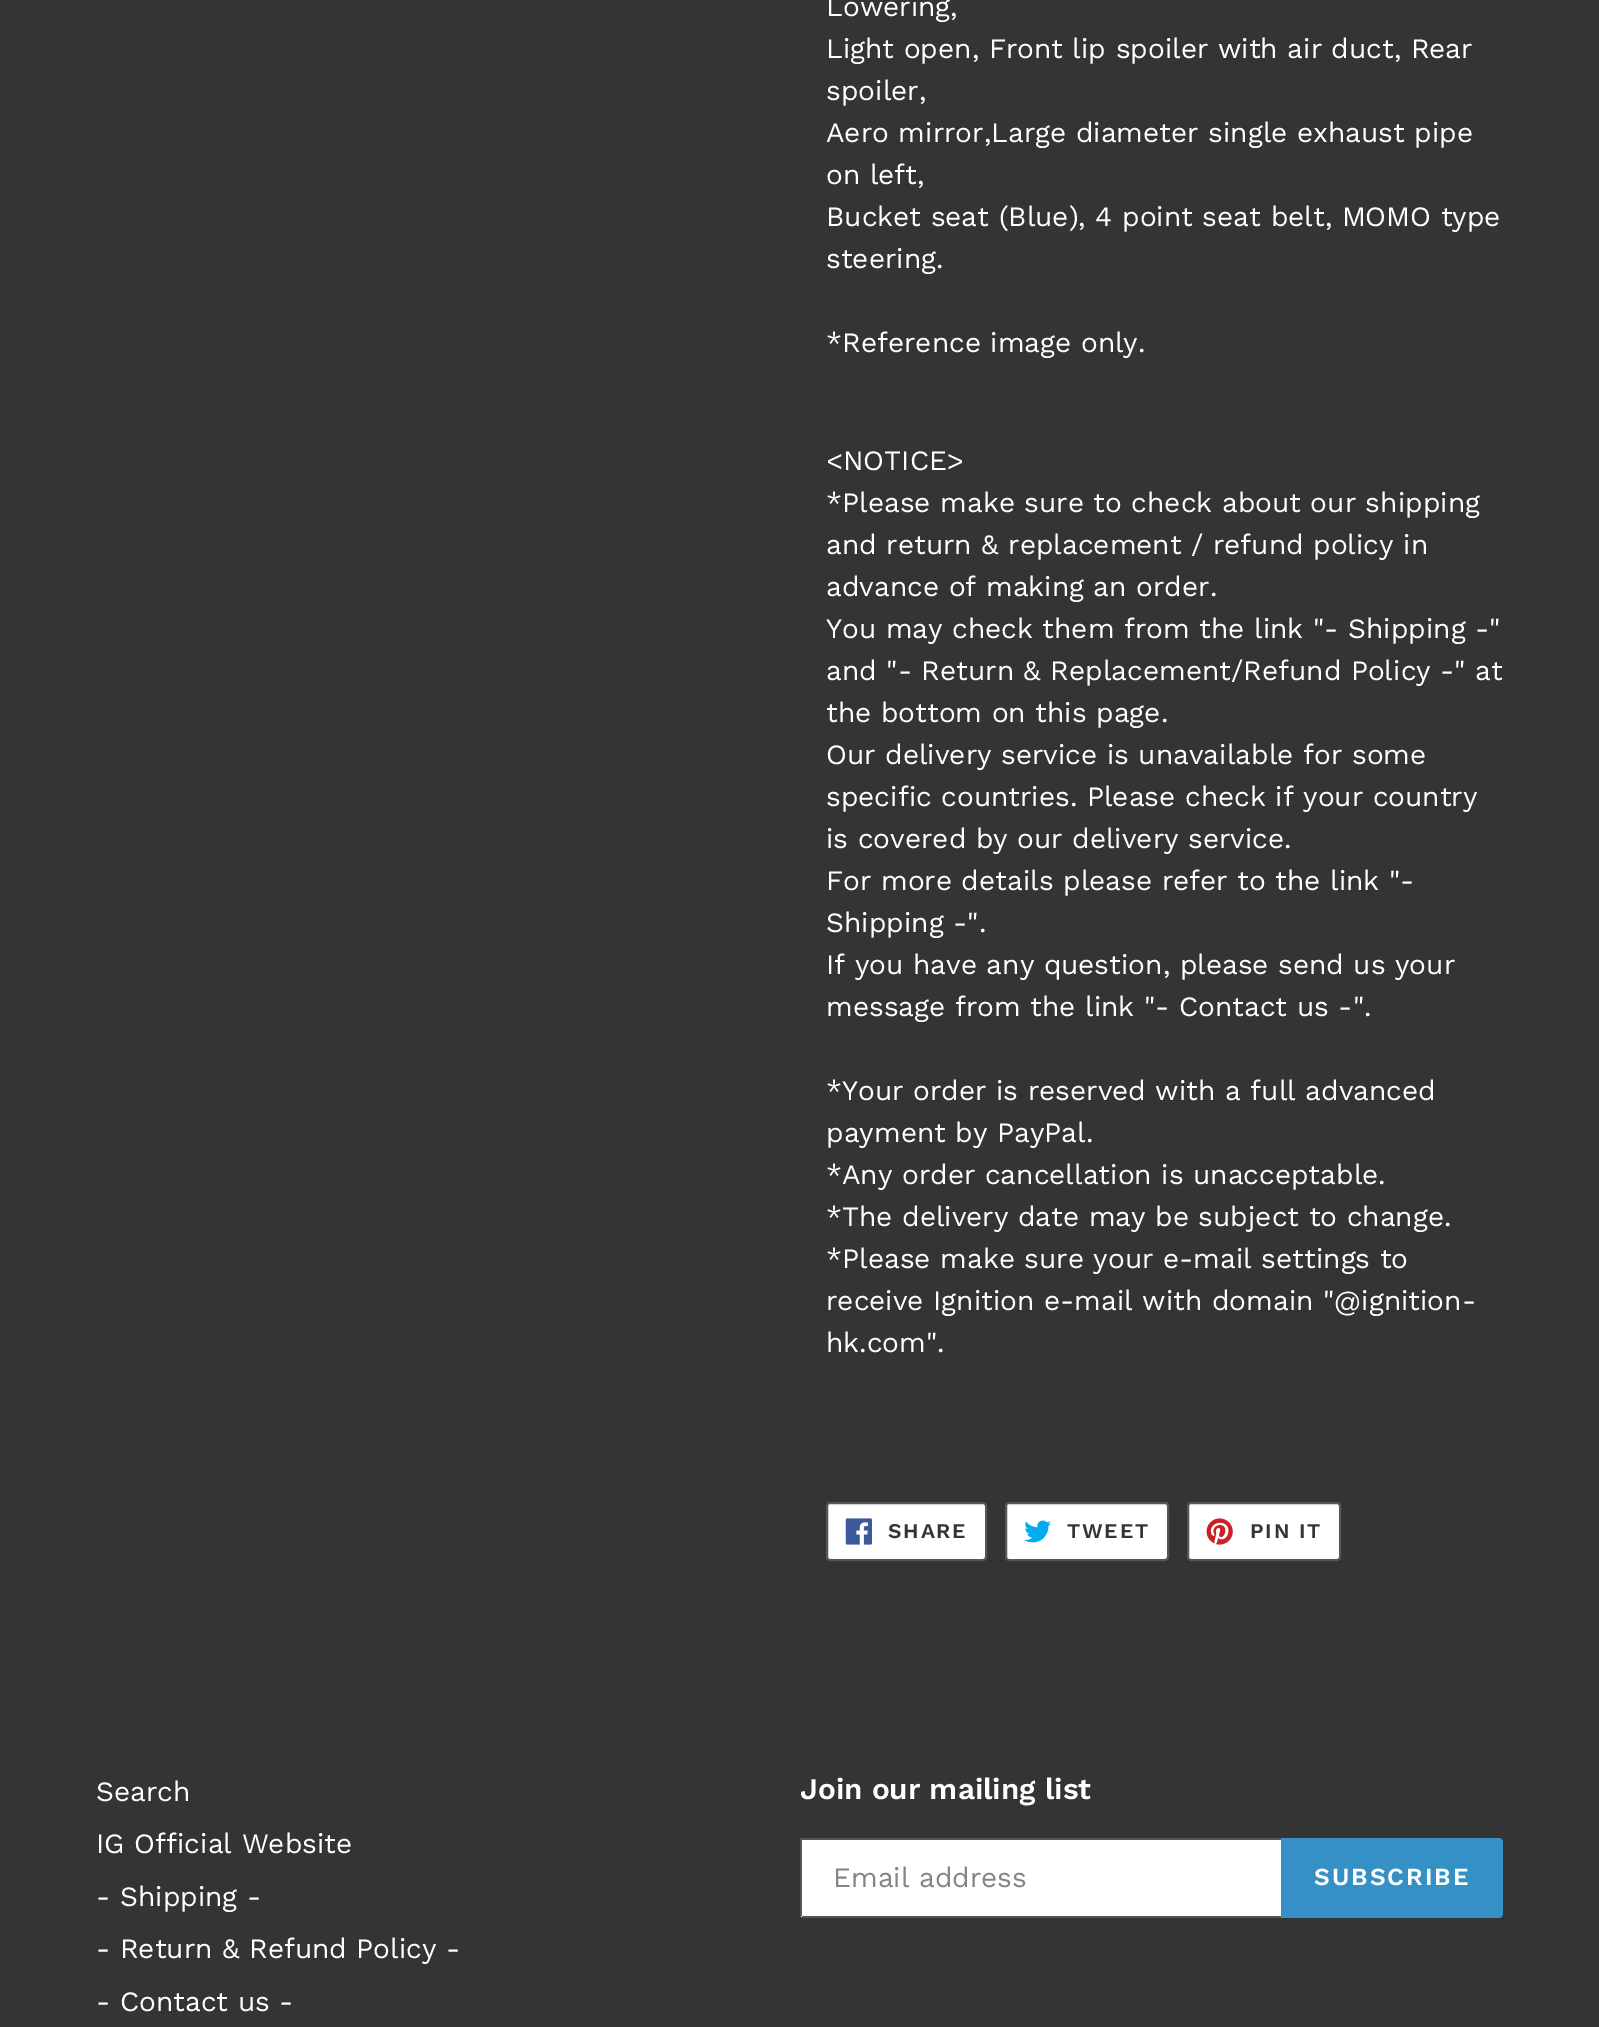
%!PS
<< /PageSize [1599 2027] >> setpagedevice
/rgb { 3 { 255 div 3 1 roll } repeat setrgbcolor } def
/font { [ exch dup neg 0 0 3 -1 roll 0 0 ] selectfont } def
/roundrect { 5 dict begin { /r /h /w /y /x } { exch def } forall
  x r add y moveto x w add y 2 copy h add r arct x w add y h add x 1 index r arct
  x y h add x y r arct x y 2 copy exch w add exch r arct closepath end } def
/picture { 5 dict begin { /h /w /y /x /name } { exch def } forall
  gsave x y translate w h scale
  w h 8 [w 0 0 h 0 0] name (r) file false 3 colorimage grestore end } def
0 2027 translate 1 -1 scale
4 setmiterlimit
53 52 52 rgb
0 0 1599 2027 rectfill
255 255 255 rgb
827 1503 159 57 3 roundrect gsave fill grestore
85 85 85 rgb
2 setlinewidth
stroke
(img/1.rgb) 845 1518 27 27 picture
255 255 255 rgb
1006 1503 162 57 3 roundrect gsave fill grestore
85 85 85 rgb
stroke
(img/2.rgb) 1024 1520 27 23 picture
255 255 255 rgb
1188 1503 152 57 3 roundrect gsave fill grestore
85 85 85 rgb
stroke
(img/3.rgb) 1206 1518 27 27 picture
255 255 255 rgb
804 1838 moveto 1281 1838 lineto 1281 1918 lineto 804 1918 lineto 802 1918 800 1916 800 1914 curveto 800 1842 lineto 800 1840 802 1838 804 1838 curveto closepath fill
[
  [802 1838 479 2 85 85 85]
  [802 1916 479 2 85 85 85]
  [800 1839 2 77 85 85 85]
] { aload pop rgb rectfill } forall
53 144 197 rgb
1281 1838 moveto 1499 1838 lineto 1501 1838 1503 1840 1503 1842 curveto 1503 1914 lineto 1503 1916 1501 1918 1499 1918 curveto 1281 1918 lineto closepath fill
/WorkSans-Regular 28 font
255 255 255 rgb
[
  [(Lowering,) 826 16]
  [(Light open, Front lip spoiler with air duct, Rear) 826 58]
  [(spoiler,) 826 100]
  [(Aero mirror,Large diameter single exhaust pipe) 826 142]
  [(on left,) 826 184]
  [(Bucket seat \(Blue\), 4 point seat belt, MOMO type) 826 226]
  [(steering.) 826 268]
  [(*Reference image only.) 826 352]
  [(<NOTICE>) 826 470]
  [(*Please make sure to check about our shipping) 826 512]
  [(and return & replacement / refund policy in) 826 554]
  [(advance of making an order.) 826 596]
  [(You may check them from the link "- Shipping -") 826 638]
  [(and "- Return & Replacement/Refund Policy -" at) 826 680]
  [(the bottom on this page.) 826 722]
  [(Our delivery service is unavailable for some) 826 764]
  [(specific countries. Please check if your country) 826 806]
  [(is covered by our delivery service.) 826 848]
  [(For more details please refer to the link "-) 826 890]
  [(Shipping -".) 826 932]
  [(If you have any question, please send us your) 826 974]
  [(message from the link "- Contact us -".) 826 1016]
  [(*Your order is reserved with a full advanced) 826 1100]
  [(payment by PayPal.) 826 1142]
  [(*Any order cancellation is unacceptable.) 826 1184]
  [(*The delivery date may be subject to change.) 826 1226]
  [(*Please make sure your e-mail settings to) 826 1268]
  [(receive Ignition e-mail with domain "@ignition-) 826 1310]
  [(hk.com".) 826 1352]
] { aload pop moveto show } forall
/WorkSans-SemiBold 21 font
53 52 52 rgb
888 1538 moveto 1.75 0 (SHARE) ashow
1067 1538 moveto 1.75 0 (TWEET) ashow
1250 1538 moveto 1.75 0 (PIN IT) ashow
/WorkSans-Regular 28 font
255 255 255 rgb
[
  [(Search) 96 1801]
  [(IG Official Website) 96 1853]
  [(- Shipping -) 96 1906]
  [(- Return & Refund Policy -) 96 1958]
  [(- Contact us -) 96 2011]
] { aload pop moveto show } forall
/WorkSans-SemiBold 29.75 font
800 1799 moveto (Join our mailing list) show
/WorkSans-Regular 28 font
134 133 133 rgb
833 1887 moveto (Email address) show
/WorkSans-SemiBold 24.5 font
255 255 255 rgb
1314 1885 moveto 2 0 (SUBSCRIBE) ashow
showpage
